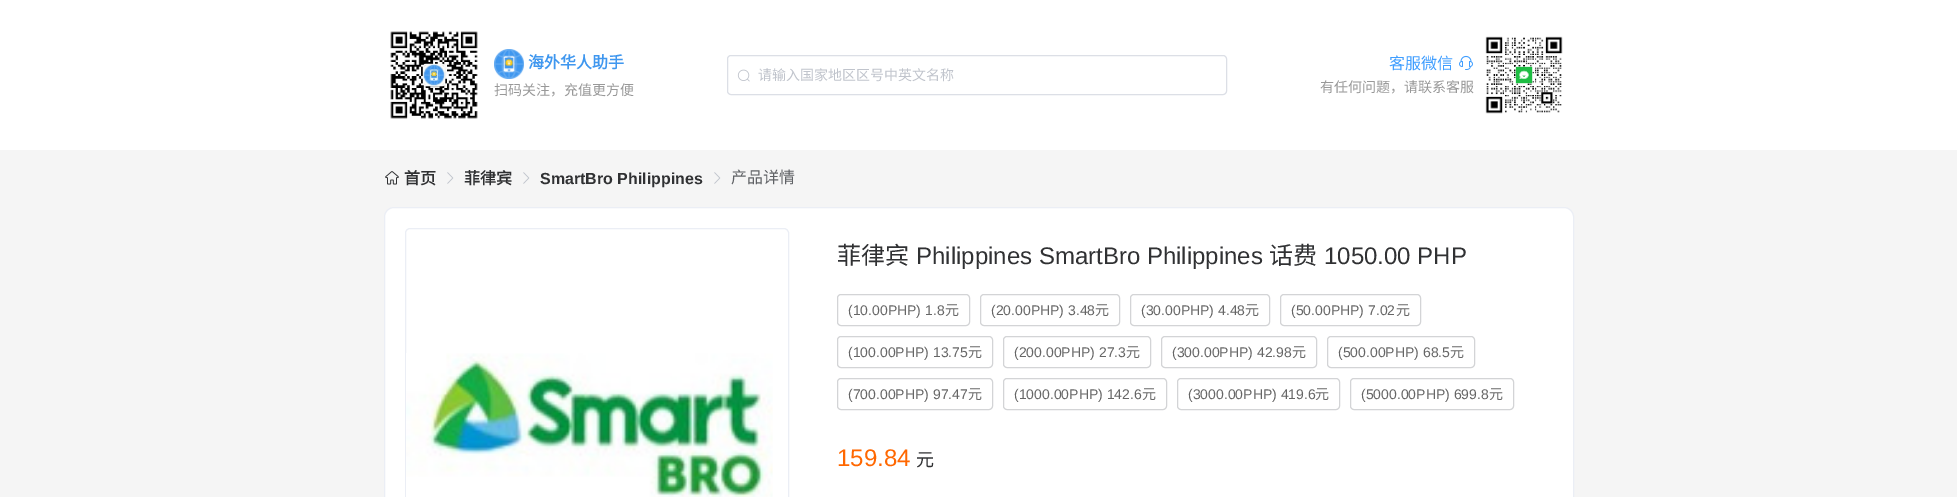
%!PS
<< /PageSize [1957 497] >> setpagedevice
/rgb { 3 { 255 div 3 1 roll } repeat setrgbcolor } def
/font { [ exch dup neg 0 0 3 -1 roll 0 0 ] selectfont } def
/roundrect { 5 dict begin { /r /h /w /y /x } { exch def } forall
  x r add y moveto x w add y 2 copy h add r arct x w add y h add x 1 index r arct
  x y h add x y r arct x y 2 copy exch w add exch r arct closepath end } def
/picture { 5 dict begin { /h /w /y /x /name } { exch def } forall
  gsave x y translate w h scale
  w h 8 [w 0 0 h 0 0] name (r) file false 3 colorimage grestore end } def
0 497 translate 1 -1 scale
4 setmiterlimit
245 245 245 rgb
0 0 1957 497 rectfill
255 255 255 rgb
0 0 1957 150 rectfill
(img/1.rgb) 390 31 88 88 picture
(img/2.rgb) 494 49 30 30 picture
220 223 230 rgb
727.5 55.5 499 39 3.5 roundrect stroke
(img/3.rgb) 737 69 13 13 picture
(img/4.rgb) 1459 55 14 15 picture
(img/5.rgb) 1485 36 78 78 picture
(img/6.rgb) 385 171 14 14 picture
(img/7.rgb) 447 172 7 12 picture
(img/7.rgb) 523 172 7 12 picture
(img/7.rgb) 714 172 7 12 picture
255 255 255 rgb
384.5 207.5 1189 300 9.5 roundrect gsave fill grestore
235 238 245 rgb
stroke
405.5 228.5 383 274 4.5 roundrect stroke
(img/8.rgb) 406 353 367 144 picture
211 212 214 rgb
837.5 294.5 132 31 3.5 roundrect stroke
980.5 294.5 139 31 3.5 roundrect stroke
1130.5 294.5 139 31 3.5 roundrect stroke
1280.5 294.5 140 31 3.5 roundrect stroke
837.5 336.5 155 31 3.5 roundrect stroke
1003.5 336.5 147 31 3.5 roundrect stroke
1161.5 336.5 155 31 3.5 roundrect stroke
1327.5 336.5 147 31 3.5 roundrect stroke
837.5 378.5 155 31 3.5 roundrect stroke
1003.5 378.5 163 31 3.5 roundrect stroke
1177.5 378.5 162 31 3.5 roundrect stroke
1350.5 378.5 163 31 3.5 roundrect stroke
/NotoSansCJKSC-Bold 16 font
63 151 239 rgb
528 68 moveto (海外华人助手) show
/NotoSansCJKSC-Regular 14 font
153 153 153 rgb
494 95 moveto (扫码关注，充值更方便) show
192 196 204 rgb
758 80 moveto (请输入国家地区区号中英文名称) show
/NotoSansCJKSC-Regular 16 font
64 158 255 rgb
1389 69 moveto (客服微信) show
/NotoSansCJKSC-Regular 14 font
153 153 153 rgb
1320 92 moveto (有任何问题，请联系客服) show
/NotoSansCJKSC-Bold 16 font
48 49 51 rgb
404 184 moveto (首页) show
464 184 moveto (菲律宾) show
/LiberationSans-Bold 16 font
540 184 moveto (SmartBro Philippines) show
/NotoSansCJKSC-Regular 16 font
96 98 102 rgb
731 183 moveto (产品详情) show
/NotoSansCJKSC-Regular 24 font
48 49 51 rgb
837 264 moveto (菲律宾) show
/LiberationSans-Regular 24 font
916 264 moveto (Philippines SmartBro Philippines) show
/NotoSansCJKSC-Regular 24 font
1269 264 moveto (话费) show
/LiberationSans-Regular 24 font
1324 264 moveto (1050.00 PHP) show
/LiberationSans-Regular 14 font
102 102 102 rgb
848 315 moveto (\(10.00PHP\) 1.8) show
/NotoSansCJKSC-Regular 14 font
945 315 moveto (元) show
/LiberationSans-Regular 14 font
991 315 moveto (\(20.00PHP\) 3.48) show
/NotoSansCJKSC-Regular 14 font
1095 315 moveto (元) show
/LiberationSans-Regular 14 font
1141 315 moveto (\(30.00PHP\) 4.48) show
/NotoSansCJKSC-Regular 14 font
1245 315 moveto (元) show
/LiberationSans-Regular 14 font
1291 315 moveto (\(50.00PHP\) 7.02) show
/NotoSansCJKSC-Regular 14 font
1396 315 moveto (元) show
/LiberationSans-Regular 14 font
848 357 moveto (\(100.00PHP\) 13.75) show
/NotoSansCJKSC-Regular 14 font
968 357 moveto (元) show
/LiberationSans-Regular 14 font
1014 357 moveto (\(200.00PHP\) 27.3) show
/NotoSansCJKSC-Regular 14 font
1126 357 moveto (元) show
/LiberationSans-Regular 14 font
1172 357 moveto (\(300.00PHP\) 42.98) show
/NotoSansCJKSC-Regular 14 font
1292 357 moveto (元) show
/LiberationSans-Regular 14 font
1338 357 moveto (\(500.00PHP\) 68.5) show
/NotoSansCJKSC-Regular 14 font
1450 357 moveto (元) show
/LiberationSans-Regular 14 font
848 399 moveto (\(700.00PHP\) 97.47) show
/NotoSansCJKSC-Regular 14 font
968 399 moveto (元) show
/LiberationSans-Regular 14 font
1014 399 moveto (\(1000.00PHP\) 142.6) show
/NotoSansCJKSC-Regular 14 font
1142 399 moveto (元) show
/LiberationSans-Regular 14 font
1188 399 moveto (\(3000.00PHP\) 419.6) show
/NotoSansCJKSC-Regular 14 font
1315 399 moveto (元) show
/LiberationSans-Regular 14 font
1361 399 moveto (\(5000.00PHP\) 699.8) show
/NotoSansCJKSC-Regular 14 font
1489 399 moveto (元) show
/LiberationSans-Regular 24 font
255 103 0 rgb
837 466 moveto (159.84) show
/NotoSansCJKSC-Regular 18 font
48 49 51 rgb
916 466 moveto (元) show
showpage
